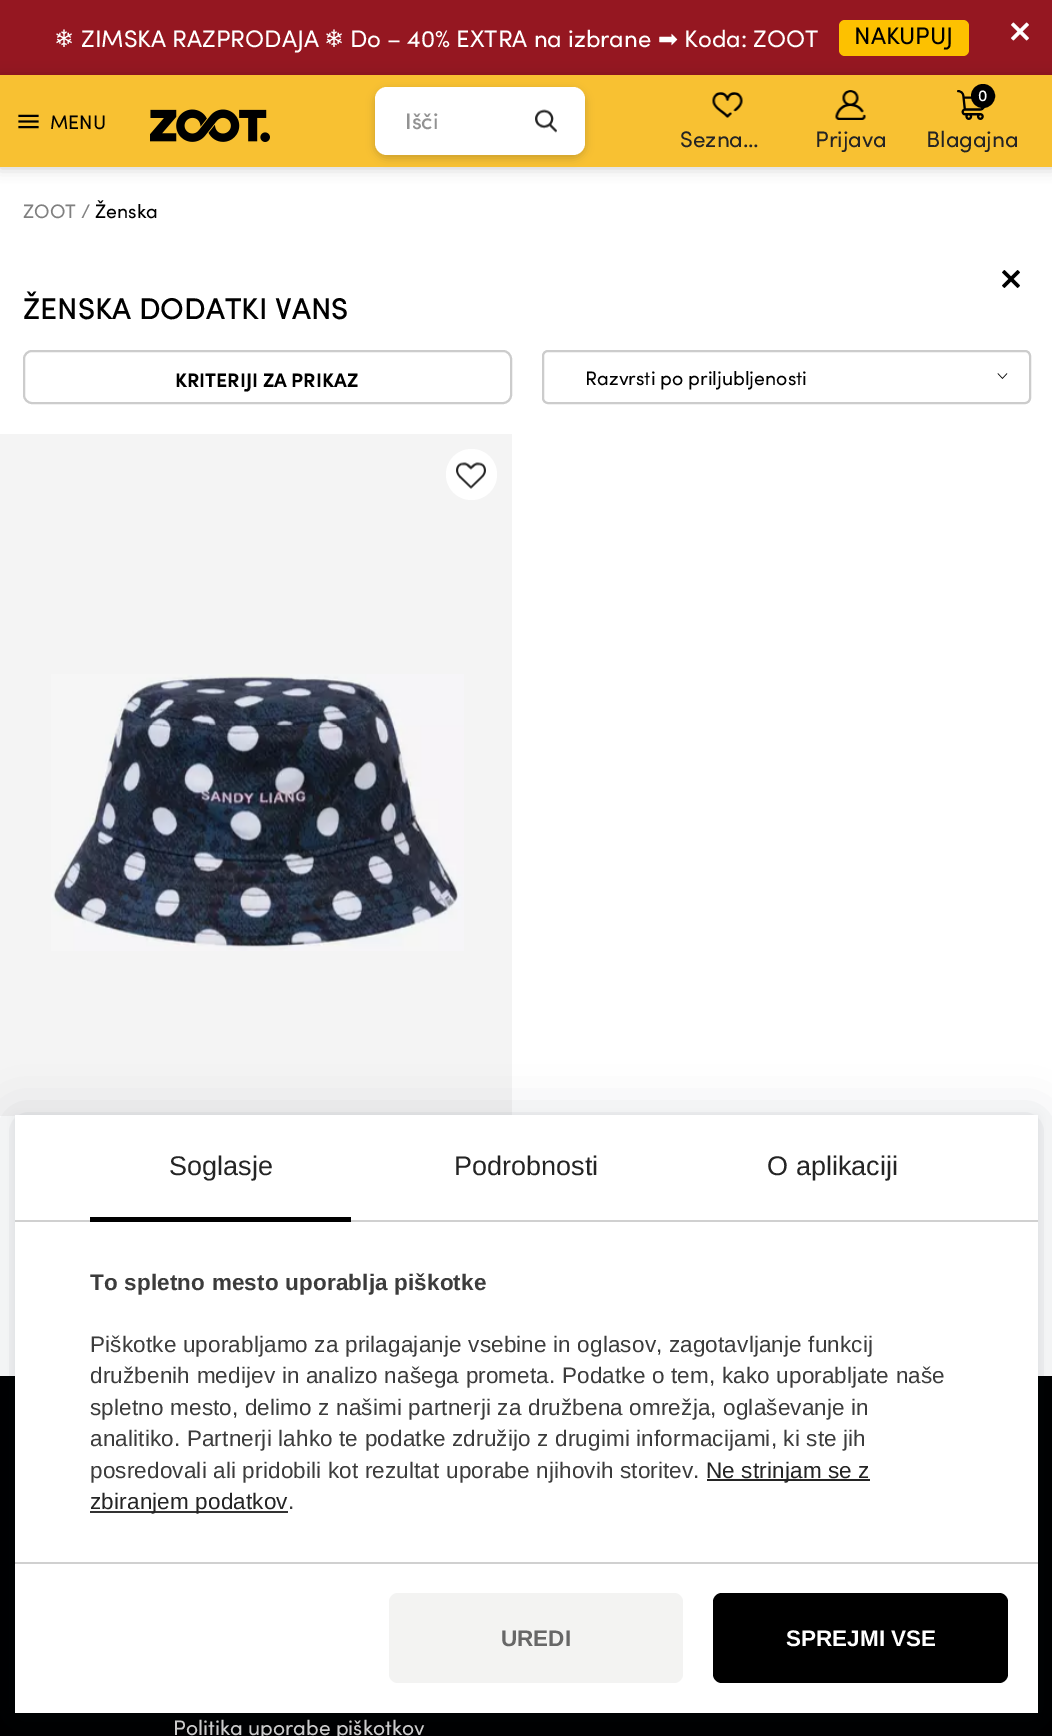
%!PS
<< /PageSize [1052 1736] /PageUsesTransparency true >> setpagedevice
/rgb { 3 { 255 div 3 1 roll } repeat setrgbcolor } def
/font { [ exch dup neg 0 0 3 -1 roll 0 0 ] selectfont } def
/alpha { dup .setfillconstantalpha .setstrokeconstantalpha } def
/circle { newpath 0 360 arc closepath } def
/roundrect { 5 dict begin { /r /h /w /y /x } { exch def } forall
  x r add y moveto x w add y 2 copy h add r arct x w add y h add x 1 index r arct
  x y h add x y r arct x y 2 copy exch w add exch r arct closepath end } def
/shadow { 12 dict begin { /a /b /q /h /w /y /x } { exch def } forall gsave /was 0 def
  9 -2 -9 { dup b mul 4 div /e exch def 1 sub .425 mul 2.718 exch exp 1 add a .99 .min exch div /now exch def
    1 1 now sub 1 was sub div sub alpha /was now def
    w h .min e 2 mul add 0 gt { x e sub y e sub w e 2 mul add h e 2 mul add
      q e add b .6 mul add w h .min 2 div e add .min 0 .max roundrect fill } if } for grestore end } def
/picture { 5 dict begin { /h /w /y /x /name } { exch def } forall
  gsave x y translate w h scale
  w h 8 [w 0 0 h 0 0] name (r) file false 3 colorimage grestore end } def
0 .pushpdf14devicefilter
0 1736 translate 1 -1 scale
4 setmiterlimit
255 255 255 rgb
0 0 1052 1736 rectfill
149 23 33 rgb
0 0 1052 75 rectfill
253 193 0 rgb
839 20 130 36 6 roundrect fill
(img/1.rgb) 1011 22 18 19 picture
0 0 0 rgb
0 77 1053 91 0 7 0.2 shadow
248 193 50 rgb
0 75 1052 92 rectfill
(img/2.rgb) 18 114 21 15 picture
(img/3.rgb) 150 109 120 33 picture
186 146 43 rgb
375 90 210 68 12 4.5 0.75 shadow
255 255 255 rgb
375 87 210 68 12 roundrect fill
(img/4.rgb) 535 109 22 24 picture
(img/5.rgb) 712 92 31 26 picture
(img/6.rgb) 835 90 31 30 picture
(img/7.rgb) 957 90 28 30 picture
0 0 0 rgb
983 96 11 circle gsave fill grestore
2 setlinewidth
stroke
(img/8.rgb) 1002 270 18 18 picture
204 204 204 rgb
24 351 487 52 8 roundrect stroke
543 351 487 52 5 roundrect stroke
(img/9.rgb) 997 373 11 6 picture
244 244 244 rgb
0 434 512 682 rectfill
(img/10.rgb) 51 674 413 277 picture
255 255 255 rgb
471.5 474.5 25.5 circle fill
(img/11.rgb) 456 462 30 27 picture
0 0 0 rgb
0 1376 1052 360 rectfill
5 27 44 rgb
15 1118 1023 598 0 24 0.16 shadow
15 1116 1023 599 0 4.5 0.06 shadow
[
  [15 1115 1023 598 255 255 255]
  [15 1220 1023 2 208 208 208]
  [90 1217 261 5 0 0 0]
  [707 1479 163 2 36 36 36]
  [90 1511 198 2 36 36 36]
] { aload pop rgb rectfill } forall
gsave
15 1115 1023 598 rectclip
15 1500 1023 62 rectclip
255 255 255 rgb
15 1562 1023 151 0 30 1 shadow
grestore
208 208 208 rgb
15 1562 1023 2 rectfill
243 243 242 rgb
389 1593 294 90 9 roundrect fill
0 0 0 rgb
713 1593 295 90 9 roundrect fill
/DejaVuSans-Regular 24 font
255 255 255 rgb
54 47 moveto (❄) show
/Sofia-Regular 24 font
81 47 moveto (ZIMSKA RAZPRODAJA) show
/DejaVuSans-Regular 24 font
324 47 moveto (❄) show
/Sofia-Regular 24 font
350 47 moveto (Do – 40% EXTRA na izbrane) show
/DejaVuSans-Regular 24 font
658 47 moveto (➡) show
/Sofia-Regular 24 font
684 47 moveto (Koda: ZOOT) show
0 0 0 rgb
854 44 moveto (NAKUPUJ) show
/Sofia-Regular 19.5 font
50 129 moveto (MENU) show
/Sofia-Medium 22.5 font
146 146 146 rgb
405 129 moveto (Išči) show
/Sofia-Regular 22.5 font
36 36 36 rgb
680 147 moveto (Sezna…) show
815 147 moveto (Prijava) show
/Sofia-Medium 16 font
255 255 255 rgb
978 101 moveto (0) show
/Sofia-Regular 22.5 font
36 36 36 rgb
926 147 moveto (Blagajna) show
/Sofia-Regular 19.5 font
128 128 128 rgb
23 218 moveto (ZOOT /) show
0 0 0 rgb
95 218 moveto (Ženska) show
/Sofia-Medium 30 font
23 319 moveto (ŽENSKA DODATKI VANS) show
/Sofia-Bold 19.5 font
175 387 moveto (KRITERIJI ZA PRIKAZ) show
/Sofia-Regular 19.5 font
585 385 moveto (Razvrsti po priljubljenosti) show
/Sofia-Regular 21 font
204 204 204 rgb
173 1735 moveto (Politika uporabe piškotkov) show
/LiberationSans-Regular 27 font
36 36 36 rgb
[
  [(Soglasje) 169 1175]
  [(Podrobnosti) 454 1175]
  [(O aplikaciji) 767 1175]
] { aload pop moveto show } forall
/LiberationSans-Bold 22.5 font
60 60 60 rgb
90 1290 moveto 0.15 0 (To spletno mesto uporablja piškotke) ashow
/LiberationSans-Regular 22.5 font
90 1352 moveto 0.15 0 (Piškotke uporabljamo za prilagajanje vsebine in oglasov, zagotavljanje funkcij) ashow
90 1383 moveto 0.15 0 (družbenih medijev in analizo našega prometa. Podatke o tem, kako uporabljate naše) ashow
90 1415 moveto 0.15 0 (spletno mesto, delimo z našimi partnerji za družbena omrežja, oglaševanje in) ashow
90 1446 moveto 0.15 0 (analitiko. Partnerji lahko te podatke združijo z drugimi informacijami, ki ste jih) ashow
90 1478 moveto 0.15 0 (posredovali ali pridobili kot rezultat uporabe njihovih storitev.) ashow
36 36 36 rgb
706 1478 moveto 0.15 0 (Ne strinjam se z) ashow
90 1509 moveto 0.15 0 (zbiranjem podatkov) ashow
60 60 60 rgb
288 1509 moveto 0.15 0 (.) ashow
/LiberationSans-Bold 22.5 font
103 103 103 rgb
501 1646 moveto (UREDI) show
255 255 255 rgb
786 1646 moveto (SPREJMI VSE) show
.poppdf14devicefilter showpage
